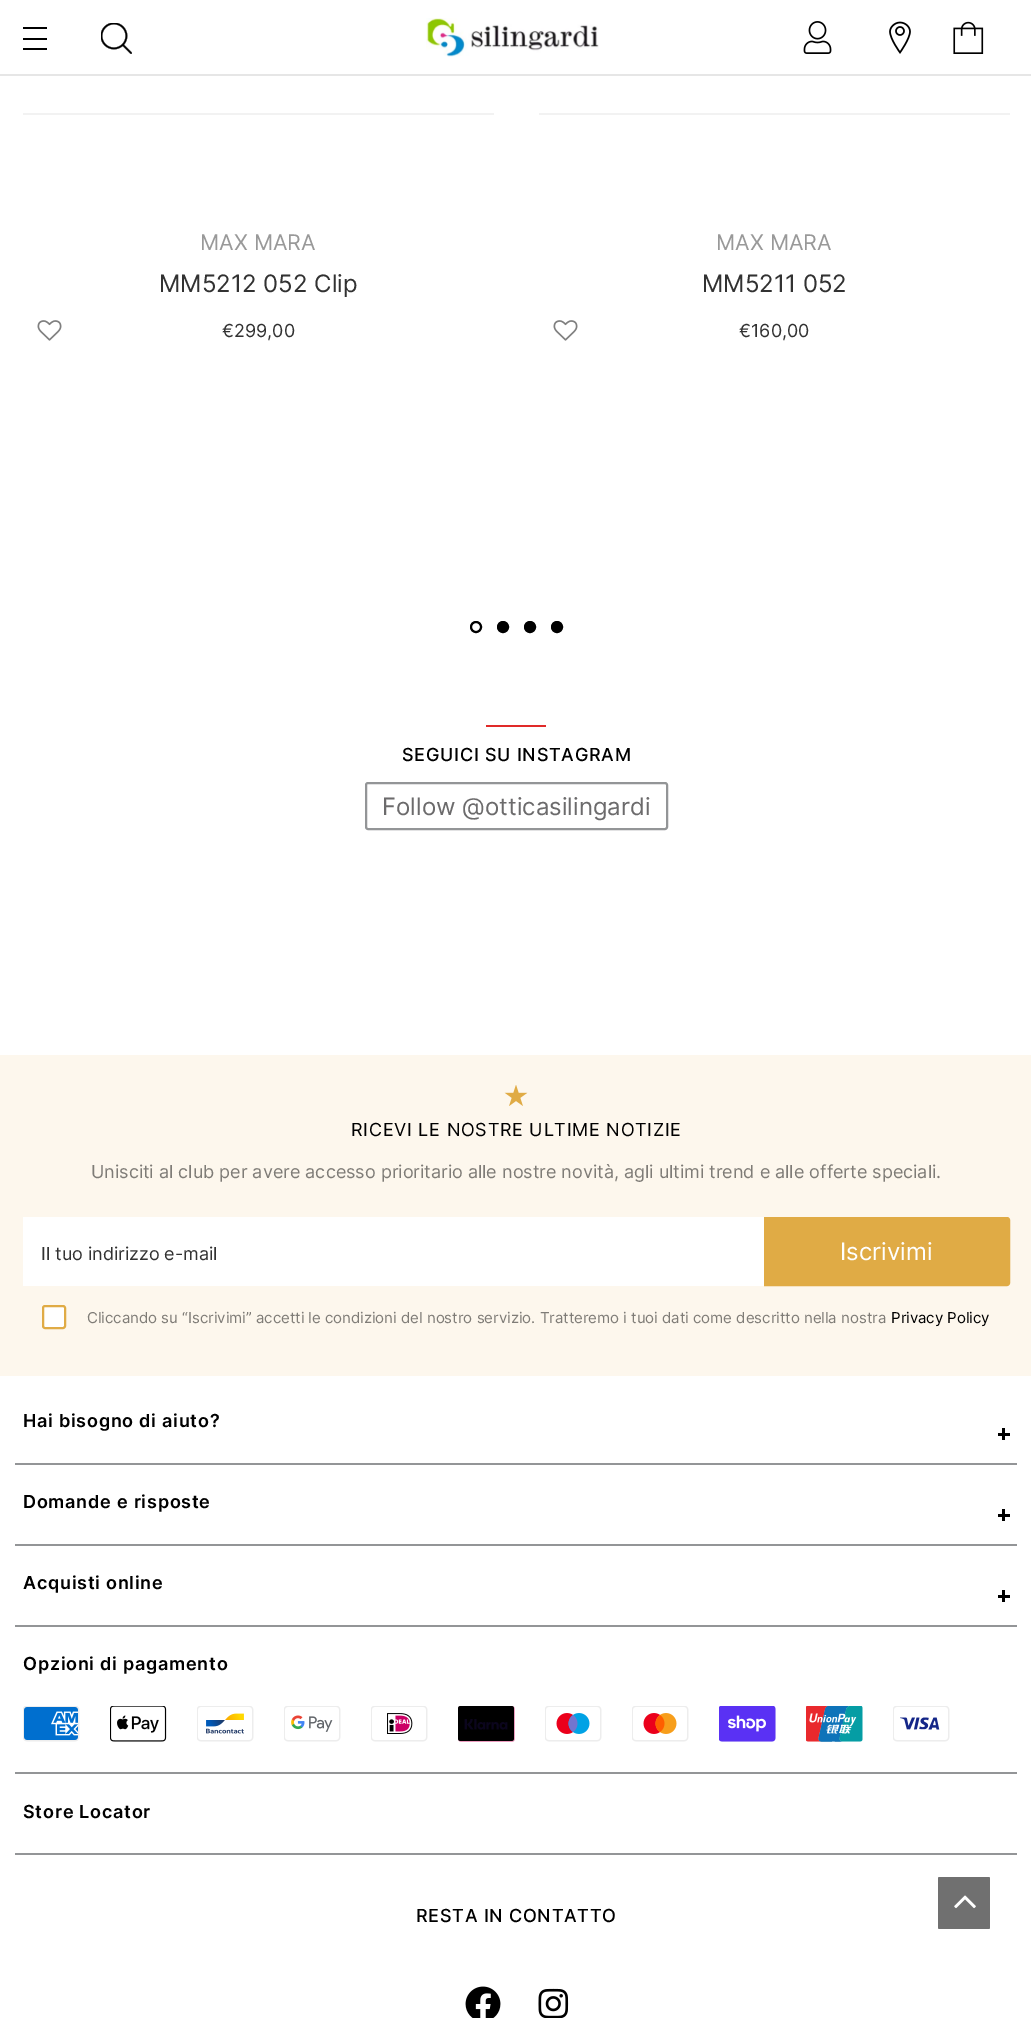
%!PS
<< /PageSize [1031 2018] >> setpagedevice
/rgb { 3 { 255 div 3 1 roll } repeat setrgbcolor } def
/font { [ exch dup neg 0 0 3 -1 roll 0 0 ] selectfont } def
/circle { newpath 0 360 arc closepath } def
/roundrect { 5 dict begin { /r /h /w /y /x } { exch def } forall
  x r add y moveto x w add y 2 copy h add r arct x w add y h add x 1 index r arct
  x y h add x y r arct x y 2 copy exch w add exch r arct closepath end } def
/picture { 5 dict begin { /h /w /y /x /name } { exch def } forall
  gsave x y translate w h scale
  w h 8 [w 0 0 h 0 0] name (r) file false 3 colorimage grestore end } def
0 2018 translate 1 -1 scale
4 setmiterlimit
255 255 255 rgb
0 0 1031 2018 rectfill
[
  [0 74 1031 2 230 230 230]
  [23 27 24 2 0 0 0]
  [23 38 24 2 0 0 0]
  [23 48 24 2 0 0 0]
] { aload pop rgb rectfill } forall
(img/1.rgb) 101 23 31 31 picture
(img/2.rgb) 426 18 173 39 picture
(img/3.rgb) 803 21 29 33 picture
(img/4.rgb) 889 21 22 33 picture
(img/5.rgb) 953 21 31 33 picture
242 242 242 rgb
23 113 471 2 rectfill
(img/6.rgb) 37 320 25 21 picture
539 113 471 2 rectfill
(img/6.rgb) 553 320 25 21 picture
0 0 0 rgb
2 setlinewidth
476 627 5 circle stroke
503 627 5 circle gsave fill grestore
stroke
530 627 5 circle gsave fill grestore
stroke
557 627 5 circle gsave fill grestore
stroke
224 42 41 rgb
486 725 60 2 rectfill
147 149 151 rgb
366 783 301 46 2 roundrect stroke
253 247 237 rgb
0 1055 1031 321 rectfill
(img/7.rgb) 504 1085 24 21 picture
255 255 255 rgb
23 1217 741 69 rectfill
224 171 69 rgb
765 1218 moveto 1007 1218 lineto 1008 1218 1009 1219 1009 1220 curveto 1009 1283 lineto 1009 1284 1008 1285 1007 1285 curveto 765 1285 lineto closepath gsave fill grestore
stroke
255 255 255 rgb
43 1306 22 22 2 roundrect gsave fill grestore
224 171 69 rgb
stroke
[
  [15 1463 1002 2 147 149 151]
  [1002 1428 3 12 0 0 0]
  [998 1433 12 3 0 0 0]
  [15 1544 1002 2 147 149 151]
  [1002 1509 3 12 0 0 0]
  [998 1514 12 3 0 0 0]
  [15 1625 1002 2 147 149 151]
  [1002 1590 3 12 0 0 0]
  [998 1595 12 3 0 0 0]
  [15 1772 1002 2 147 149 151]
] { aload pop rgb rectfill } forall
(img/8.rgb) 23 1706 57 36 picture
(img/9.rgb) 110 1706 57 36 picture
(img/10.rgb) 197 1706 57 36 picture
(img/11.rgb) 284 1706 57 36 picture
(img/12.rgb) 371 1706 57 36 picture
(img/13.rgb) 458 1706 57 36 picture
(img/14.rgb) 545 1706 57 36 picture
(img/15.rgb) 632 1706 57 36 picture
(img/16.rgb) 719 1706 57 36 picture
(img/17.rgb) 806 1706 57 36 picture
(img/18.rgb) 893 1706 57 36 picture
15 1853 1002 2 rectfill
(img/19.rgb) 465 1986 36 32 picture
(img/20.rgb) 538 1988 31 30 picture
112 112 112 rgb
938 1877 52 52 1.5 roundrect fill
(img/21.rgb) 954 1895 22 14 picture
/Inter-Regular 21.5 font
153 153 153 rgb
200 250 moveto (MAX MARA) show
/Inter-Regular 24 font
50 50 50 rgb
159 292 moveto (MM5212 052 Clip) show
/Inter-Regular 18 font
222 337 moveto (€299,00) show
/Inter-Regular 21.5 font
153 153 153 rgb
716 250 moveto (MAX MARA) show
/Inter-Regular 24 font
50 50 50 rgb
702 292 moveto (MM5211 052) show
/Inter-Regular 18 font
739 337 moveto (€160,00) show
/Inter-Medium 18 font
0 0 0 rgb
402 761 moveto 0.75 0 (SEGUICI SU INSTAGRAM) ashow
/Inter-Regular 24 font
108 107 108 rgb
382 815 moveto (Follow @otticasilingardi) show
/Inter-Regular 18 font
0 0 0 rgb
351 1136 moveto 0.75 0 (RICEVI LE NOSTRE ULTIME NOTIZIE) ashow
127 124 119 rgb
91 1178 moveto (Unisciti al club per avere accesso prioritario alle nostre novità, agli ultimi trend e alle offerte speciali.) show
50 50 50 rgb
41 1260 moveto (Il tuo indirizzo e-mail) show
/Inter-Regular 24 font
255 255 255 rgb
840 1260 moveto (Iscrivimi) show
/Inter-Regular 15 font
127 124 119 rgb
87 1323 moveto (Cliccando su “Iscrivimi” accetti le condizioni del nostro servizio. Tratteremo i tuoi dati come descritto nella nostra) show
0 0 0 rgb
891 1323 moveto (Privacy Policy) show
/Inter-SemiBold 18 font
23 1427 moveto 0.75 0 (Hai bisogno di aiuto?) ashow
23 1508 moveto 0.75 0 (Domande e risposte) ashow
23 1589 moveto 0.75 0 (Acquisti online) ashow
23 1670 moveto 0.75 0 (Opzioni di pagamento) ashow
23 1818 moveto 0.75 0 (Store Locator) ashow
/Inter-Medium 18 font
416 1922 moveto 0.75 0 (RESTA IN CONTATTO) ashow
showpage
